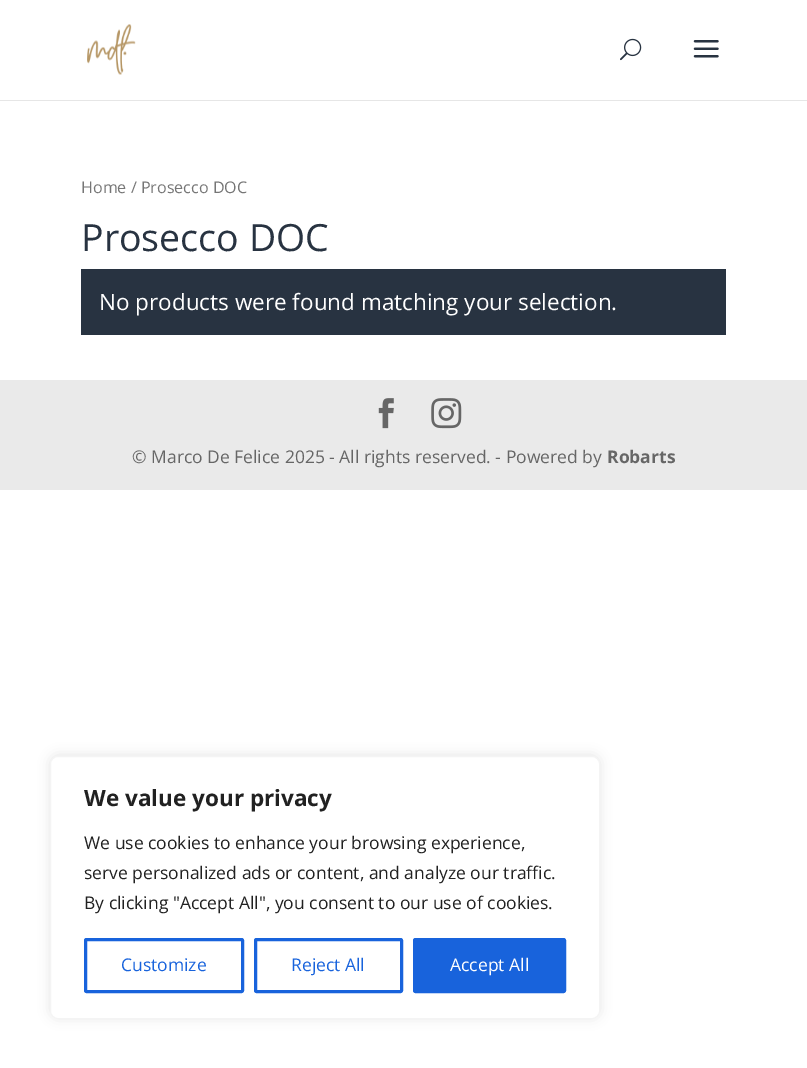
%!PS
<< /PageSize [807 1068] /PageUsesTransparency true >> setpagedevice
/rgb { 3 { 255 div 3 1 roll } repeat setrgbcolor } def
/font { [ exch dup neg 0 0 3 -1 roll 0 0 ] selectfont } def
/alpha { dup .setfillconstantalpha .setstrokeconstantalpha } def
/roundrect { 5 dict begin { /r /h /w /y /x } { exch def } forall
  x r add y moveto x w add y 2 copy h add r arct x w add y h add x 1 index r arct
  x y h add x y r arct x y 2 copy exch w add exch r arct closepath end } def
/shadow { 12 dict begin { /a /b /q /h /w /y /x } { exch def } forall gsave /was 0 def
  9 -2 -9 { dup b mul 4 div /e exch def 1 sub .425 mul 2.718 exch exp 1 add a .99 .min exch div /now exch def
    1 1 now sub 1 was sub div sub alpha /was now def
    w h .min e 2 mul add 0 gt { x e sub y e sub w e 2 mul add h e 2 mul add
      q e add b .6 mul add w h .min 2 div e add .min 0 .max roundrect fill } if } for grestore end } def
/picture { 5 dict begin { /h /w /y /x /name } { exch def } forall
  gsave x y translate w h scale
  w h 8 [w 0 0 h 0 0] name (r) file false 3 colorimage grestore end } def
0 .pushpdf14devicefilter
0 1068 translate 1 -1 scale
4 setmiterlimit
255 255 255 rgb
0 0 807 1068 rectfill
230 230 230 rgb
0 100 moveto 0 101 lineto 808 101 lineto 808 1 lineto 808 100 lineto closepath fill
(img/1.rgb) 87 24 49 51 picture
(img/2.rgb) 620 38 22 23 picture
(img/3.rgb) 693 40 26 18 picture
40 51 65 rgb
81 269 645 66 rectfill
234 234 234 rgb
0 380 807 110 rectfill
(img/4.rgb) 378 398 16 31 picture
(img/5.rgb) 431 398 31 31 picture
172 171 171 rgb
50 755 550 263 8 6 0.3 shadow
255 255 255 rgb
50.5 756.5 549 262 7.5 roundrect gsave fill grestore
244 244 244 rgb
stroke
24 99 220 rgb
3 setlinewidth
85.5 939.5 157 52 1 roundrect stroke
255.5 939.5 146 52 1 roundrect stroke
414.5 939.5 150 52 1 roundrect gsave fill grestore
stroke
/OpenSans-Regular 16.1 font
118 118 118 rgb
81 193 moveto (Home / Prosecco DOC) show
/OpenSans-Regular 37.5 font
40 51 65 rgb
81 251 moveto (Prosecco DOC) show
/OpenSans-Regular 22.5 font
255 255 255 rgb
99 310 moveto (No products were found matching your selection.) show
/OpenSans-Regular 17.5 font
102 102 102 rgb
132 463 moveto (© Marco De Felice 2025 - All rights reserved. - Powered by) show
/OpenSans-Bold 17.5 font
607 463 moveto (Robarts) show
/OpenSans-Bold 22.5 font
33 33 33 rgb
84 806 moveto (We value your privacy) show
/OpenSans-Regular 17.5 font
[
  [(We use cookies to enhance your browsing experience,) 84 849]
  [(serve personalized ads or content, and analyze our traffic.) 84 879]
  [(By clicking "Accept All", you consent to our use of cookies.) 84 909]
] { aload pop moveto show } forall
24 99 220 rgb
121 971 moveto (Customize) show
291 971 moveto (Reject All) show
255 255 255 rgb
450 971 moveto (Accept All) show
.poppdf14devicefilter showpage
